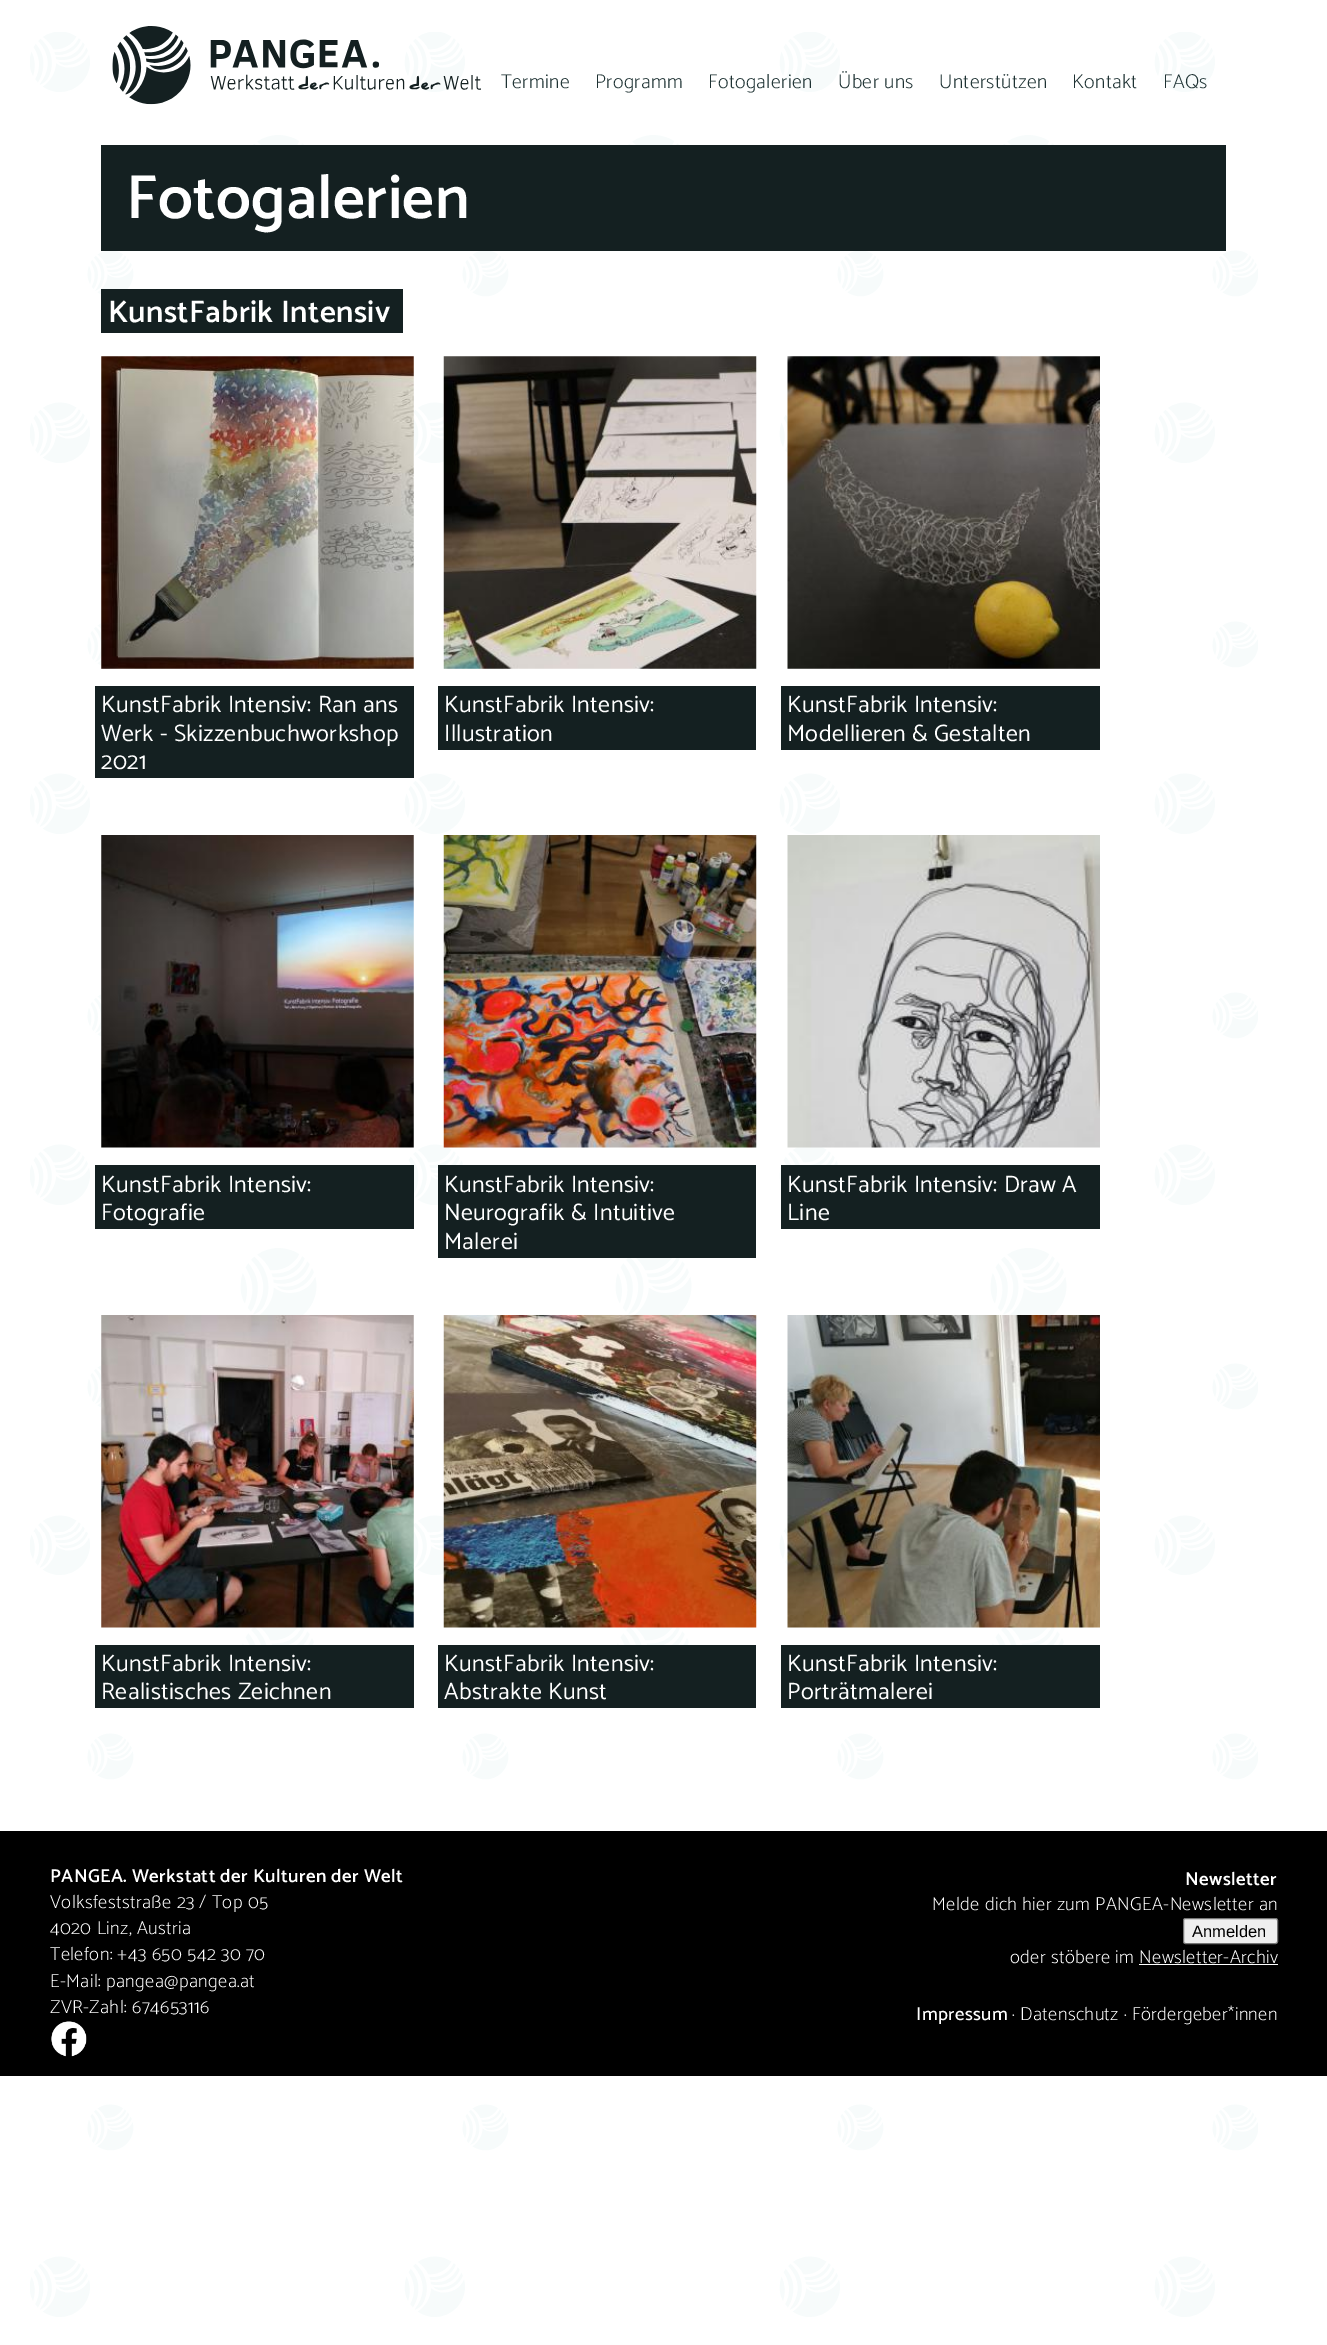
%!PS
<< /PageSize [1327 2345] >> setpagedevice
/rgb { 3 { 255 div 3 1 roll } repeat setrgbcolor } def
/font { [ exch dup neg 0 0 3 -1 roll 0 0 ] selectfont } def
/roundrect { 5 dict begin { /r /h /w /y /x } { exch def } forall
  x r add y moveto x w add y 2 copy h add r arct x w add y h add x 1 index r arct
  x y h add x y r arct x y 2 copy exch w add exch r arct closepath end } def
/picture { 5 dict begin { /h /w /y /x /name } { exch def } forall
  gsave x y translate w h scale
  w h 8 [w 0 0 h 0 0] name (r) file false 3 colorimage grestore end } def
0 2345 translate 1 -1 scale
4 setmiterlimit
255 255 255 rgb
0 0 1327 2345 rectfill
(img/1.rgb) 30 32 1228 2285 picture
(img/2.rgb) 112 26 369 79 picture
20 32 33 rgb
101 145 1125 106 rectfill
101 289 302 44 rectfill
(img/3.rgb) 101 356 313 313 picture
95 686 319 92 rectfill
(img/4.rgb) 443 356 314 313 picture
438 686 318 64 rectfill
(img/5.rgb) 787 356 313 313 picture
781 686 319 64 rectfill
(img/6.rgb) 101 835 313 313 picture
95 1165 319 64 rectfill
(img/7.rgb) 443 835 314 313 picture
438 1165 318 93 rectfill
(img/8.rgb) 787 835 313 313 picture
781 1165 319 64 rectfill
(img/9.rgb) 101 1315 313 313 picture
95 1645 319 63 rectfill
(img/10.rgb) 443 1315 314 313 picture
438 1645 318 63 rectfill
(img/11.rgb) 787 1315 313 313 picture
781 1645 319 63 rectfill
0 0 0 rgb
0 1831 1327 245 rectfill
(img/12.rgb) 51 2021 36 36 picture
239 239 239 rgb
1183.5 1918.5 94 25 2 roundrect gsave fill grestore
118 118 118 rgb
stroke
255 255 255 rgb
1139 1964 139 1 rectfill
/Catamaran-ExtraLight 20 font
30 50 51 rgb
501 88 moveto 0.4 0 (Termine) ashow
595 88 moveto 0.4 0 (Programm) ashow
708 88 moveto 0.4 0 (Fotogalerien) ashow
838 88 moveto 0.4 0 (Über uns) ashow
939 88 moveto 0.4 0 (Unterstützen) ashow
1072 88 moveto 0.4 0 (Kontakt) ashow
1163 88 moveto 0.4 0 (FAQs) ashow
/Catamaran-SemiBold 62.5 font
255 255 255 rgb
126 218 moveto 0.4 0 (Fotogalerien) ashow
/Catamaran-SemiBold 31.25 font
108 322 moveto 0.4 0 (KunstFabrik Intensiv) ashow
/Catamaran-Regular 23.75 font
101 712 moveto 0.4 0 (KunstFabrik Intensiv: Ran ans) ashow
101 741 moveto 0.4 0 (Werk - Skizzenbuchworkshop) ashow
101 769 moveto 0.4 0 (2021) ashow
444 712 moveto 0.4 0 (KunstFabrik Intensiv:) ashow
444 741 moveto 0.4 0 (Illustration) ashow
787 712 moveto 0.4 0 (KunstFabrik Intensiv:) ashow
787 741 moveto 0.4 0 (Modellieren & Gestalten) ashow
101 1192 moveto 0.4 0 (KunstFabrik Intensiv:) ashow
101 1220 moveto 0.4 0 (Fotografie) ashow
444 1192 moveto 0.4 0 (KunstFabrik Intensiv:) ashow
444 1220 moveto 0.4 0 (Neurografik & Intuitive) ashow
444 1249 moveto 0.4 0 (Malerei) ashow
787 1192 moveto 0.4 0 (KunstFabrik Intensiv: Draw A) ashow
787 1220 moveto 0.4 0 (Line) ashow
101 1671 moveto 0.4 0 (KunstFabrik Intensiv:) ashow
101 1699 moveto 0.4 0 (Realistisches Zeichnen) ashow
444 1671 moveto 0.4 0 (KunstFabrik Intensiv:) ashow
444 1699 moveto 0.4 0 (Abstrakte Kunst) ashow
787 1671 moveto 0.4 0 (KunstFabrik Intensiv:) ashow
787 1699 moveto 0.4 0 (Porträtmalerei) ashow
/Catamaran-SemiBold 18.75 font
50 1882 moveto 0.4 0 (PANGEA. Werkstatt der Kulturen der Welt) ashow
/Catamaran-ExtraLight 18.75 font
50 1908 moveto 0.4 0 (Volksfeststraße 23 / Top 05) ashow
50 1934 moveto 0.4 0 (4020 Linz, Austria) ashow
50 1960 moveto 0.4 0 (Telefon: +43 650 542 30 70) ashow
50 1987 moveto 0.4 0 (E-Mail: pangea@pangea.at) ashow
50 2013 moveto 0.4 0 (ZVR-Zahl: 674653116) ashow
/Catamaran-SemiBold 18.75 font
1185 1885 moveto 0.4 0 (Newsletter) ashow
/Catamaran-ExtraLight 18.75 font
932 1910 moveto 0.4 0 (Melde dich hier zum PANGEA-Newsletter an) ashow
/LiberationSans-Regular 16.5 font
0 0 0 rgb
1192 1937 moveto (Anmelden) show
/Catamaran-ExtraLight 18.75 font
255 255 255 rgb
1010 1963 moveto 0.4 0 (oder stöbere im Newsletter-Archiv) ashow
/Catamaran-Medium 18.75 font
916 2020 moveto 0.4 0 (Impressum) ashow
/Catamaran-ExtraLight 18.75 font
1012 2020 moveto 0.4 0 (· Datenschutz · Fördergeber*innen) ashow
showpage
